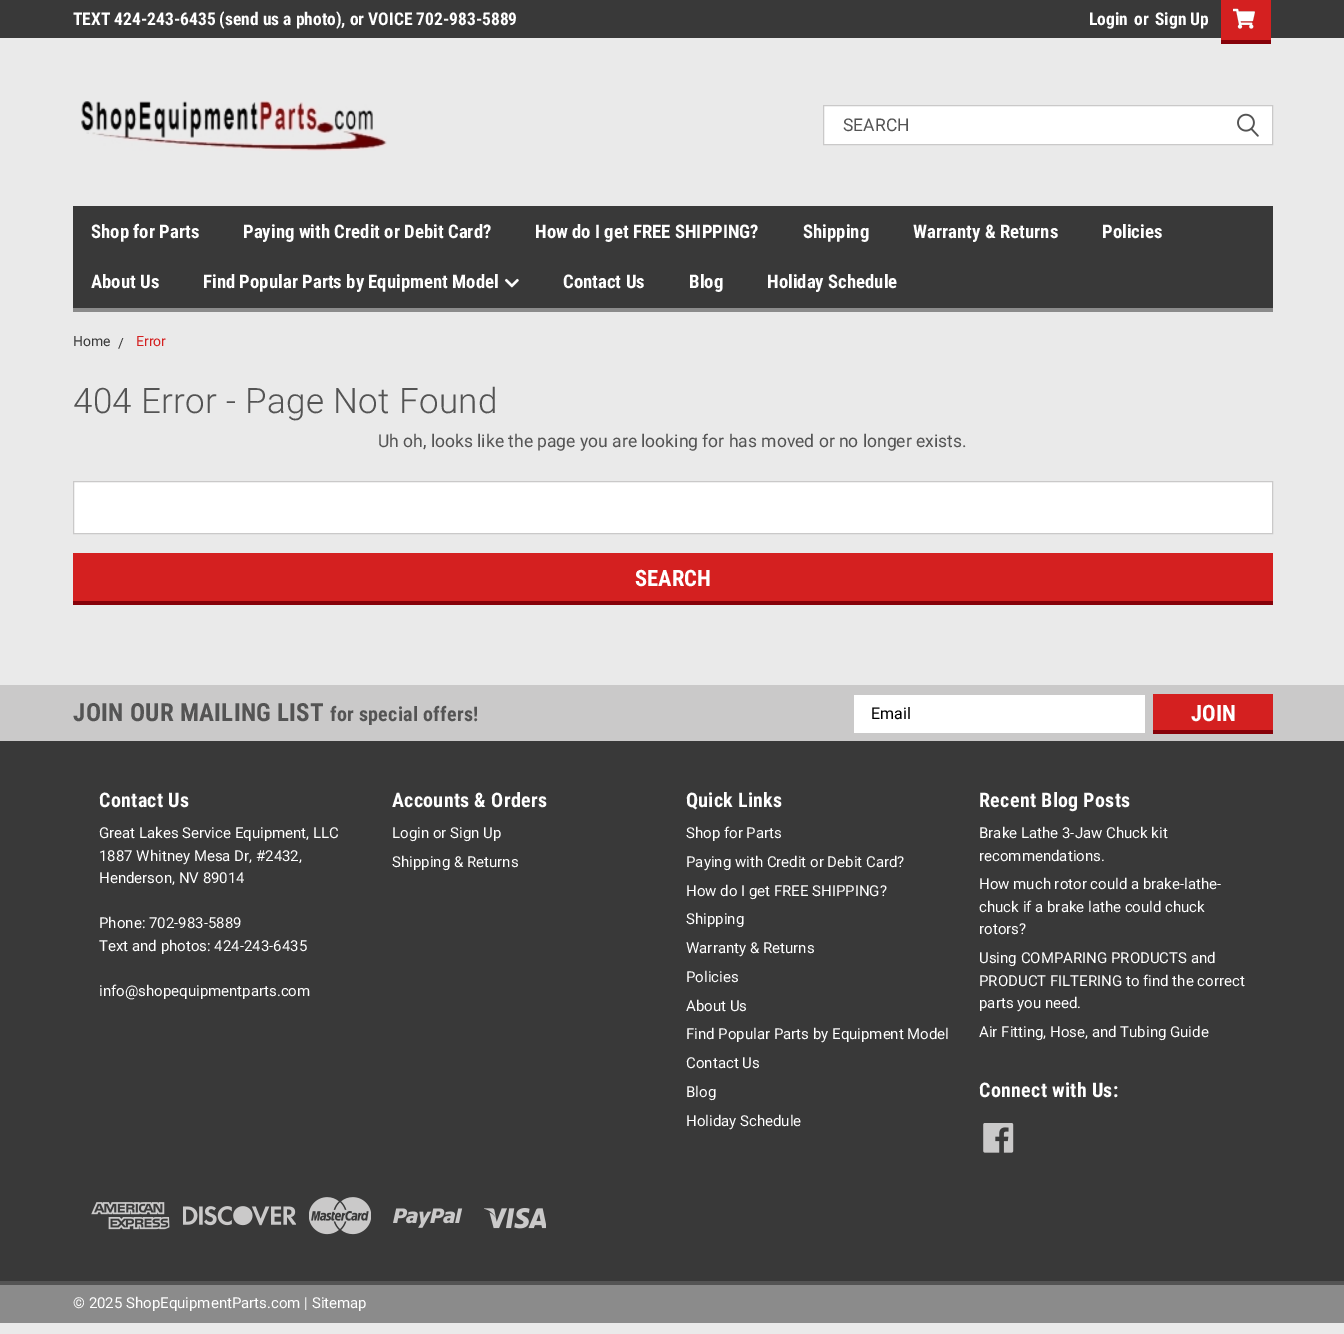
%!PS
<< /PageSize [1344 1334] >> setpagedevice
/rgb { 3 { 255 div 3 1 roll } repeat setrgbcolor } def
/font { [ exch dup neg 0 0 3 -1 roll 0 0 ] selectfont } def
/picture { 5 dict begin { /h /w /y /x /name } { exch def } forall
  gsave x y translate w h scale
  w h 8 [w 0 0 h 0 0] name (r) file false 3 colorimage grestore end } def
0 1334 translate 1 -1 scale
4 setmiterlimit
234 234 234 rgb
0 0 1344 1334 rectfill
[
  [0 0 1344 38 57 57 57]
  [1221 0 50 40 212 32 32]
  [1221 40 50 4 134 1 9]
] { aload pop rgb rectfill } forall
(img/1.rgb) 1233 8 22 21 picture
(img/2.rgb) 81 100 306 51 picture
255 255 255 rgb
823.5 105.5 moveto 1272.5 105.5 lineto 1272.5 144.5 lineto 823.5 144.5 lineto closepath gsave fill grestore
202 201 201 rgb
stroke
(img/3.rgb) 1237 113 22 24 picture
57 57 57 rgb
73 206 1200 102 rectfill
139 139 139 rgb
73 308 1200 4 rectfill
(img/4.rgb) 504 278 15 10 picture
255 255 255 rgb
73.5 481.5 moveto 1272.5 481.5 lineto 1272.5 533.5 lineto 73.5 533.5 lineto closepath gsave fill grestore
202 201 201 rgb
stroke
[
  [73 553 1200 48 212 32 32]
  [73 601 1200 4 134 1 9]
  [0 741 1344 540 57 57 57]
  [0 685 1344 56 202 201 201]
  [854 695 291 38 255 255 255]
  [1153 694 120 36 212 32 32]
  [1153 730 120 4 134 1 9]
] { aload pop rgb rectfill } forall
(img/5.rgb) 983 1123 31 30 picture
(img/6.rgb) 91 1202 79 28 picture
(img/7.rgb) 183 1206 113 20 picture
(img/8.rgb) 309 1197 62 38 picture
(img/9.rgb) 393 1208 70 20 picture
(img/10.rgb) 484 1208 62 21 picture
139 139 139 rgb
0 1285 1344 38 rectfill
84 84 84 rgb
0 1281 1344 4 rectfill
/RobotoCondensed-Bold 17.5 font
255 255 255 rgb
[
  [(TEXT 424-243-6435 \(send us a photo\), or VOICE 702-983-5889) 73 25]
  [(Login) 1089 25]
  [(or) 1134 25]
  [(Sign Up) 1155 25]
] { aload pop moveto show } forall
/Roboto-Regular 17.5 font
84 84 84 rgb
843 131 moveto (SEARCH) show
/RobotoCondensed-Bold 18.75 font
255 255 255 rgb
[
  [(Shop for Parts) 91 238]
  [(Paying with Credit or Debit Card?) 243 238]
  [(How do I get FREE SHIPPING?) 535 238]
  [(Shipping) 803 238]
  [(Warranty & Returns) 913 238]
  [(Policies) 1102 238]
  [(About Us) 91 288]
  [(Find Popular Parts by Equipment Model) 203 288]
  [(Contact Us) 563 288]
  [(Blog) 689 288]
  [(Holiday Schedule) 767 288]
] { aload pop moveto show } forall
/Roboto-Regular 14 font
57 57 57 rgb
73 346 moveto (Home) show
118 348 moveto (/) show
212 32 32 rgb
136 346 moveto (Error) show
/Roboto-Light 35 font
84 84 84 rgb
73 413 moveto 0.3 0 (404 Error - Page Not Found) ashow
/Roboto-Regular 17.5 font
378 447 moveto (Uh oh, looks like the page you are looking for has moved or no longer exists.) show
/RobotoCondensed-Bold 22.5 font
255 255 255 rgb
635 586 moveto (SEARCH) show
/RobotoCondensed-Bold 25 font
84 84 84 rgb
73 721 moveto 0.3 0 (JOIN OUR MAILING LIST) ashow
/RobotoCondensed-Bold 20 font
330 721 moveto 0.3 0 (for special offers!) ashow
/Roboto-Regular 16 font
0 0 0 rgb
871 719 moveto (Email) show
/RobotoCondensed-Bold 22.5 font
255 255 255 rgb
1191 721 moveto (JOIN) show
/RobotoCondensed-Bold 20 font
99 807 moveto 0.3 0 (Contact Us) ashow
/Roboto-Regular 15 font
[
  [(Great Lakes Service Equipment, LLC) 99 838]
  [(1887 Whitney Mesa Dr, #2432,) 99 861]
  [(Henderson, NV 89014) 99 883]
  [(Phone: 702-983-5889) 99 928]
  [(Text and photos: 424-243-6435) 99 951]
  [(info@shopequipmentparts.com) 99 996]
] { aload pop moveto show } forall
/RobotoCondensed-Bold 20 font
392 807 moveto 0.3 0 (Accounts & Orders) ashow
/Roboto-Regular 15 font
[
  [(Login or) 392 838]
  [(Sign Up) 450 838]
  [(Shipping & Returns) 392 867]
] { aload pop moveto show } forall
/RobotoCondensed-Bold 20 font
686 807 moveto 0.3 0 (Quick Links) ashow
/Roboto-Regular 15 font
[
  [(Shop for Parts) 686 838]
  [(Paying with Credit or Debit Card?) 686 867]
  [(How do I get FREE SHIPPING?) 686 896]
  [(Shipping) 686 924]
  [(Warranty & Returns) 686 953]
  [(Policies) 686 982]
  [(About Us) 686 1011]
  [(Find Popular Parts by Equipment Model) 686 1039]
  [(Contact Us) 686 1068]
  [(Blog) 686 1097]
  [(Holiday Schedule) 686 1126]
] { aload pop moveto show } forall
/RobotoCondensed-Bold 20 font
979 807 moveto 0.3 0 (Recent Blog Posts) ashow
/Roboto-Regular 15 font
[
  [(Brake Lathe 3-Jaw Chuck kit) 979 838]
  [(recommendations.) 979 861]
  [(How much rotor could a brake-lathe-) 979 889]
  [(chuck if a brake lathe could chuck) 979 912]
  [(rotors?) 979 934]
  [(Using COMPARING PRODUCTS and) 979 963]
  [(PRODUCT FILTERING to find the correct) 979 986]
  [(parts you need.) 979 1008]
  [(Air Fitting, Hose, and Tubing Guide) 979 1037]
] { aload pop moveto show } forall
/RobotoCondensed-Bold 20 font
979 1097 moveto 0.3 0 (Connect with Us:) ashow
/Roboto-Regular 15 font
73 1308 moveto (© 2025 ShopEquipmentParts.com | Sitemap) show
showpage
